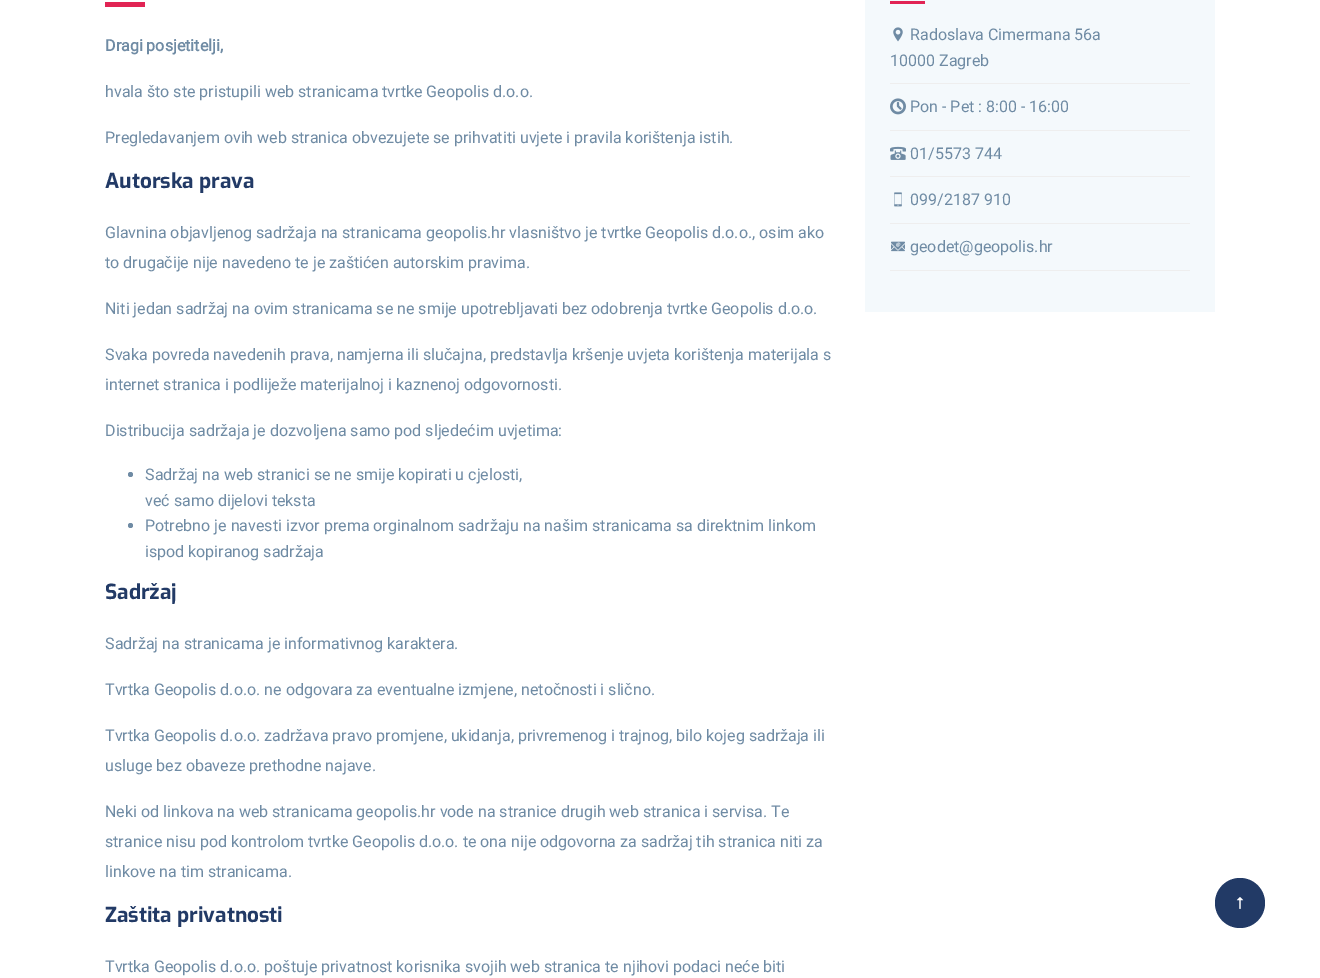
%!PS
<< /PageSize [1320 978] >> setpagedevice
/rgb { 3 { 255 div 3 1 roll } repeat setrgbcolor } def
/font { [ exch dup neg 0 0 3 -1 roll 0 0 ] selectfont } def
/circle { newpath 0 360 arc closepath } def
/picture { 5 dict begin { /h /w /y /x /name } { exch def } forall
  gsave x y translate w h scale
  w h 8 [w 0 0 h 0 0] name (r) file false 3 colorimage grestore end } def
0 978 translate 1 -1 scale
4 setmiterlimit
255 255 255 rgb
0 0 1320 978 rectfill
225 36 84 rgb
105 2 40 5 rectfill
111 139 164 rgb
130.5 474.5 2.5 circle fill
130.5 525.5 2.5 circle fill
[
  [865 0 350 312 244 249 252]
  [890 1 35 3 225 36 84]
  [890 83 300 1 238 238 238]
] { aload pop rgb rectfill } forall
(img/1.rgb) 893 27 10 15 picture
890 130 300 1 rectfill
(img/2.rgb) 890 98 16 17 picture
890 176 300 1 rectfill
(img/3.rgb) 890 146 16 14 picture
890 223 300 1 rectfill
(img/4.rgb) 894 192 8 15 picture
890 270 300 1 rectfill
(img/5.rgb) 891 241 14 11 picture
34 58 102 rgb
1240 903 25 circle fill
(img/6.rgb) 1236 897 8 12 picture
/Roboto-Bold 16 font
111 139 164 rgb
105 51 moveto (Dragi posjetitelji,) show
/Roboto-Regular 16 font
105 97 moveto (hvala što ste pristupili web stranicama tvrtke Geopolis d.o.o.) show
105 143 moveto (Pregledavanjem ovih web stranica obvezujete se prihvatiti uvjete i pravila korištenja istih.) show
/Exo-Bold 20.75 font
34 58 102 rgb
105 188 moveto (Autorska prava) show
/Roboto-Regular 16 font
111 139 164 rgb
[
  [(Glavnina objavljenog sadržaja na stranicama geopolis.hr vlasništvo je tvrtke Geopolis d.o.o., osim ako) 105 238]
  [(to drugačije nije navedeno te je zaštićen autorskim pravima.) 105 268]
  [(Niti jedan sadržaj na ovim stranicama se ne smije upotrebljavati bez odobrenja tvrtke Geopolis d.o.o.) 105 314]
  [(Svaka povreda navedenih prava, namjerna ili slučajna, predstavlja kršenje uvjeta korištenja materijala s) 105 360]
  [(internet stranica i podliježe materijalnoj i kaznenoj odgovornosti.) 105 390]
  [(Distribucija sadržaja je dozvoljena samo pod sljedećim uvjetima:) 105 436]
  [(Sadržaj na web stranici se ne smije kopirati u cjelosti,) 145 480]
  [(već samo dijelovi teksta) 145 506]
  [(Potrebno je navesti izvor prema orginalnom sadržaju na našim stranicama sa direktnim linkom) 145 531]
  [(ispod kopiranog sadržaja) 145 557]
] { aload pop moveto show } forall
/Exo-Bold 20.75 font
34 58 102 rgb
105 599 moveto (Sadržaj) show
/Roboto-Regular 16 font
111 139 164 rgb
[
  [(Sadržaj na stranicama je informativnog karaktera.) 105 649]
  [(Tvrtka Geopolis d.o.o. ne odgovara za eventualne izmjene, netočnosti i slično.) 105 695]
  [(Tvrtka Geopolis d.o.o. zadržava pravo promjene, ukidanja, privremenog i trajnog, bilo kojeg sadržaja ili) 105 741]
  [(usluge bez obaveze prethodne najave.) 105 771]
  [(Neki od linkova na web stranicama geopolis.hr vode na stranice drugih web stranica i servisa. Te) 105 817]
  [(stranice nisu pod kontrolom tvrtke Geopolis d.o.o. te ona nije odgovorna za sadržaj tih stranica niti za) 105 847]
  [(linkove na tim stranicama.) 105 877]
] { aload pop moveto show } forall
/Exo-Bold 20.75 font
34 58 102 rgb
105 922 moveto (Zaštita privatnosti) show
/Roboto-Regular 16 font
111 139 164 rgb
[
  [(Tvrtka Geopolis d.o.o. poštuje privatnost korisnika svojih web stranica te njihovi podaci neće biti) 105 972]
  [(Radoslava Cimermana 56a) 910 40]
  [(10000 Zagreb) 890 66]
  [(Pon - Pet : 8:00 - 16:00) 910 112]
  [(01/5573 744) 910 159]
  [(099/2187 910) 910 205]
  [(geodet@geopolis.hr) 910 252]
] { aload pop moveto show } forall
showpage
